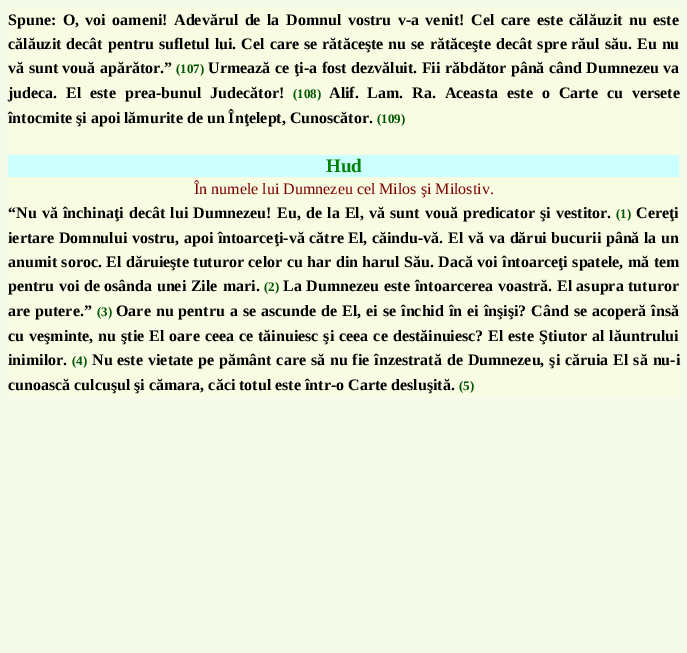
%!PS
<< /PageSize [687 653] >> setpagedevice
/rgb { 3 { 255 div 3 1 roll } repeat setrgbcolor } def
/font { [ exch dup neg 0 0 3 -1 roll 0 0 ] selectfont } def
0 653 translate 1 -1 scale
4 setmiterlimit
243 250 234 rgb
0 0 687 653 rectfill
[
  [8 8 671 147 247 252 227]
  [8 155 671 22 204 255 255]
  [8 177 671 221 247 252 227]
] { aload pop rgb rectfill } forall
/LiberationSerif-Bold 16 font
0 0 0 rgb
8 25 moveto 2.5 0 32 (Spune: O, voi oameni! Adevărul de la Domnul vostru v-a venit! Cel care) widthshow
537 25 moveto (este) show
569 25 moveto 2.5 0 32 (călăuzit nu este) widthshow
8 49 moveto 1 0 32 (călăuzit decât pentru sufletul lui. Cel care se rătăceşte nu se rătăceşte decât spre) widthshow
571 49 moveto (răul) show
605 49 moveto (său.) show
637 49 moveto 1 0 32 (Eu nu) widthshow
8 73 moveto 0.5 0 32 (vă sunt vouă apărător.”) widthshow
/LiberationSerif-Bold 13 font
0 85 0 rgb
176 73 moveto (\(107\)) show
/LiberationSerif-Bold 16 font
0 0 0 rgb
208 73 moveto (Urmează) show
275 73 moveto (ce) show
294 73 moveto 0.5 0 32 (ţi-a fost dezvăluit. Fii răbdător până când Dumnezeu) widthshow
663 73 moveto (va) show
8 98 moveto 5 0 32 (judeca. El) widthshow
90 98 moveto (este) show
125 98 moveto 5 0 32 (prea-bunul Judecător!) widthshow
/LiberationSerif-Bold 13 font
0 85 0 rgb
293 98 moveto (\(108\)) show
/LiberationSerif-Bold 16 font
0 0 0 rgb
329 98 moveto (Alif.) show
367 98 moveto 5 0 32 (Lam. Ra. Aceasta) widthshow
507 98 moveto 5 0 32 (este o Carte cu versete) widthshow
8 123 moveto (întocmite şi apoi lămurite de un Înţelept, Cunoscător.) show
/LiberationSerif-Bold 13 font
0 85 0 rgb
377 123 moveto (\(109\)) show
/LiberationSerif-Bold 19 font
0 128 0 rgb
326 172 moveto (Hud) show
/LiberationSerif-Regular 16 font
128 0 0 rgb
194 194 moveto (În numele lui Dumnezeu cel Milos şi Milostiv.) show
/LiberationSerif-Bold 16 font
0 0 0 rgb
8 218 moveto 1.25 0 32 (“Nu vă închinaţi decât lui Dumnezeu!) widthshow
277 218 moveto 1.25 0 32 (Eu, de la El,) widthshow
369 218 moveto (vă) show
390 218 moveto 1.25 0 32 (sunt vouă predicator şi vestitor.) widthshow
/LiberationSerif-Bold 13 font
0 85 0 rgb
616 218 moveto (\(1\)) show
/LiberationSerif-Bold 16 font
0 0 0 rgb
636 218 moveto (Cereţi) show
8 243 moveto 0.5 0 32 (iertare Domnului vostru, apoi întoarceţi-vă către El, căindu-vă. El) widthshow
468 243 moveto (vă) show
489 243 moveto 0.5 0 32 (va dărui bucurii până la un) widthshow
8 267 moveto 0.5 0 32 (anumit soroc.) widthshow
106 267 moveto 0.5 0 32 (El dăruieşte tuturor celor cu har din harul Său.) widthshow
438 267 moveto 0.5 0 32 (Dacă voi întoarceţi spatele, mă tem) widthshow
8 291 moveto 0.5 0 32 (pentru voi de osânda unei Zile) widthshow
223 291 moveto (mari.) show
/LiberationSerif-Bold 13 font
0 85 0 rgb
264 291 moveto (\(2\)) show
/LiberationSerif-Bold 16 font
0 0 0 rgb
283 291 moveto 0.5 0 32 (La Dumnezeu) widthshow
384 291 moveto (este) show
415 291 moveto 0.5 0 32 (întoarcerea voastră. El asupra tuturor) widthshow
8 316 moveto 1 0 32 (are putere.”) widthshow
/LiberationSerif-Bold 13 font
0 85 0 rgb
97 316 moveto (\(3\)) show
/LiberationSerif-Bold 16 font
0 0 0 rgb
116 316 moveto 1 0 32 (Oare nu pentru a se ascunde de El, ei se închid în ei înşişi? Când se acoperă însă) widthshow
8 341 moveto 1 0 32 (cu veşminte, nu ştie El oare ceea) widthshow
239 341 moveto (ce) show
258 341 moveto 1 0 32 (tăinuiesc şi ceea ce destăinuiesc? El) widthshow
508 341 moveto (este) show
539 341 moveto 1 0 32 (Ştiutor al lăuntrului) widthshow
8 365 moveto (inimilor.) show
/LiberationSerif-Bold 13 font
0 85 0 rgb
72 365 moveto (\(4\)) show
/LiberationSerif-Bold 16 font
0 0 0 rgb
92 365 moveto (Nu) show
117 365 moveto (este) show
148 365 moveto 0.9 0 32 (vietate pe pământ care să nu fie înzestrată de Dumnezeu, şi căruia El să nu-i) widthshow
8 390 moveto (cunoască culcuşul şi cămara, căci totul este într-o Carte desluşită.) show
/LiberationSerif-Bold 13 font
0 85 0 rgb
459 390 moveto (\(5\)) show
showpage
